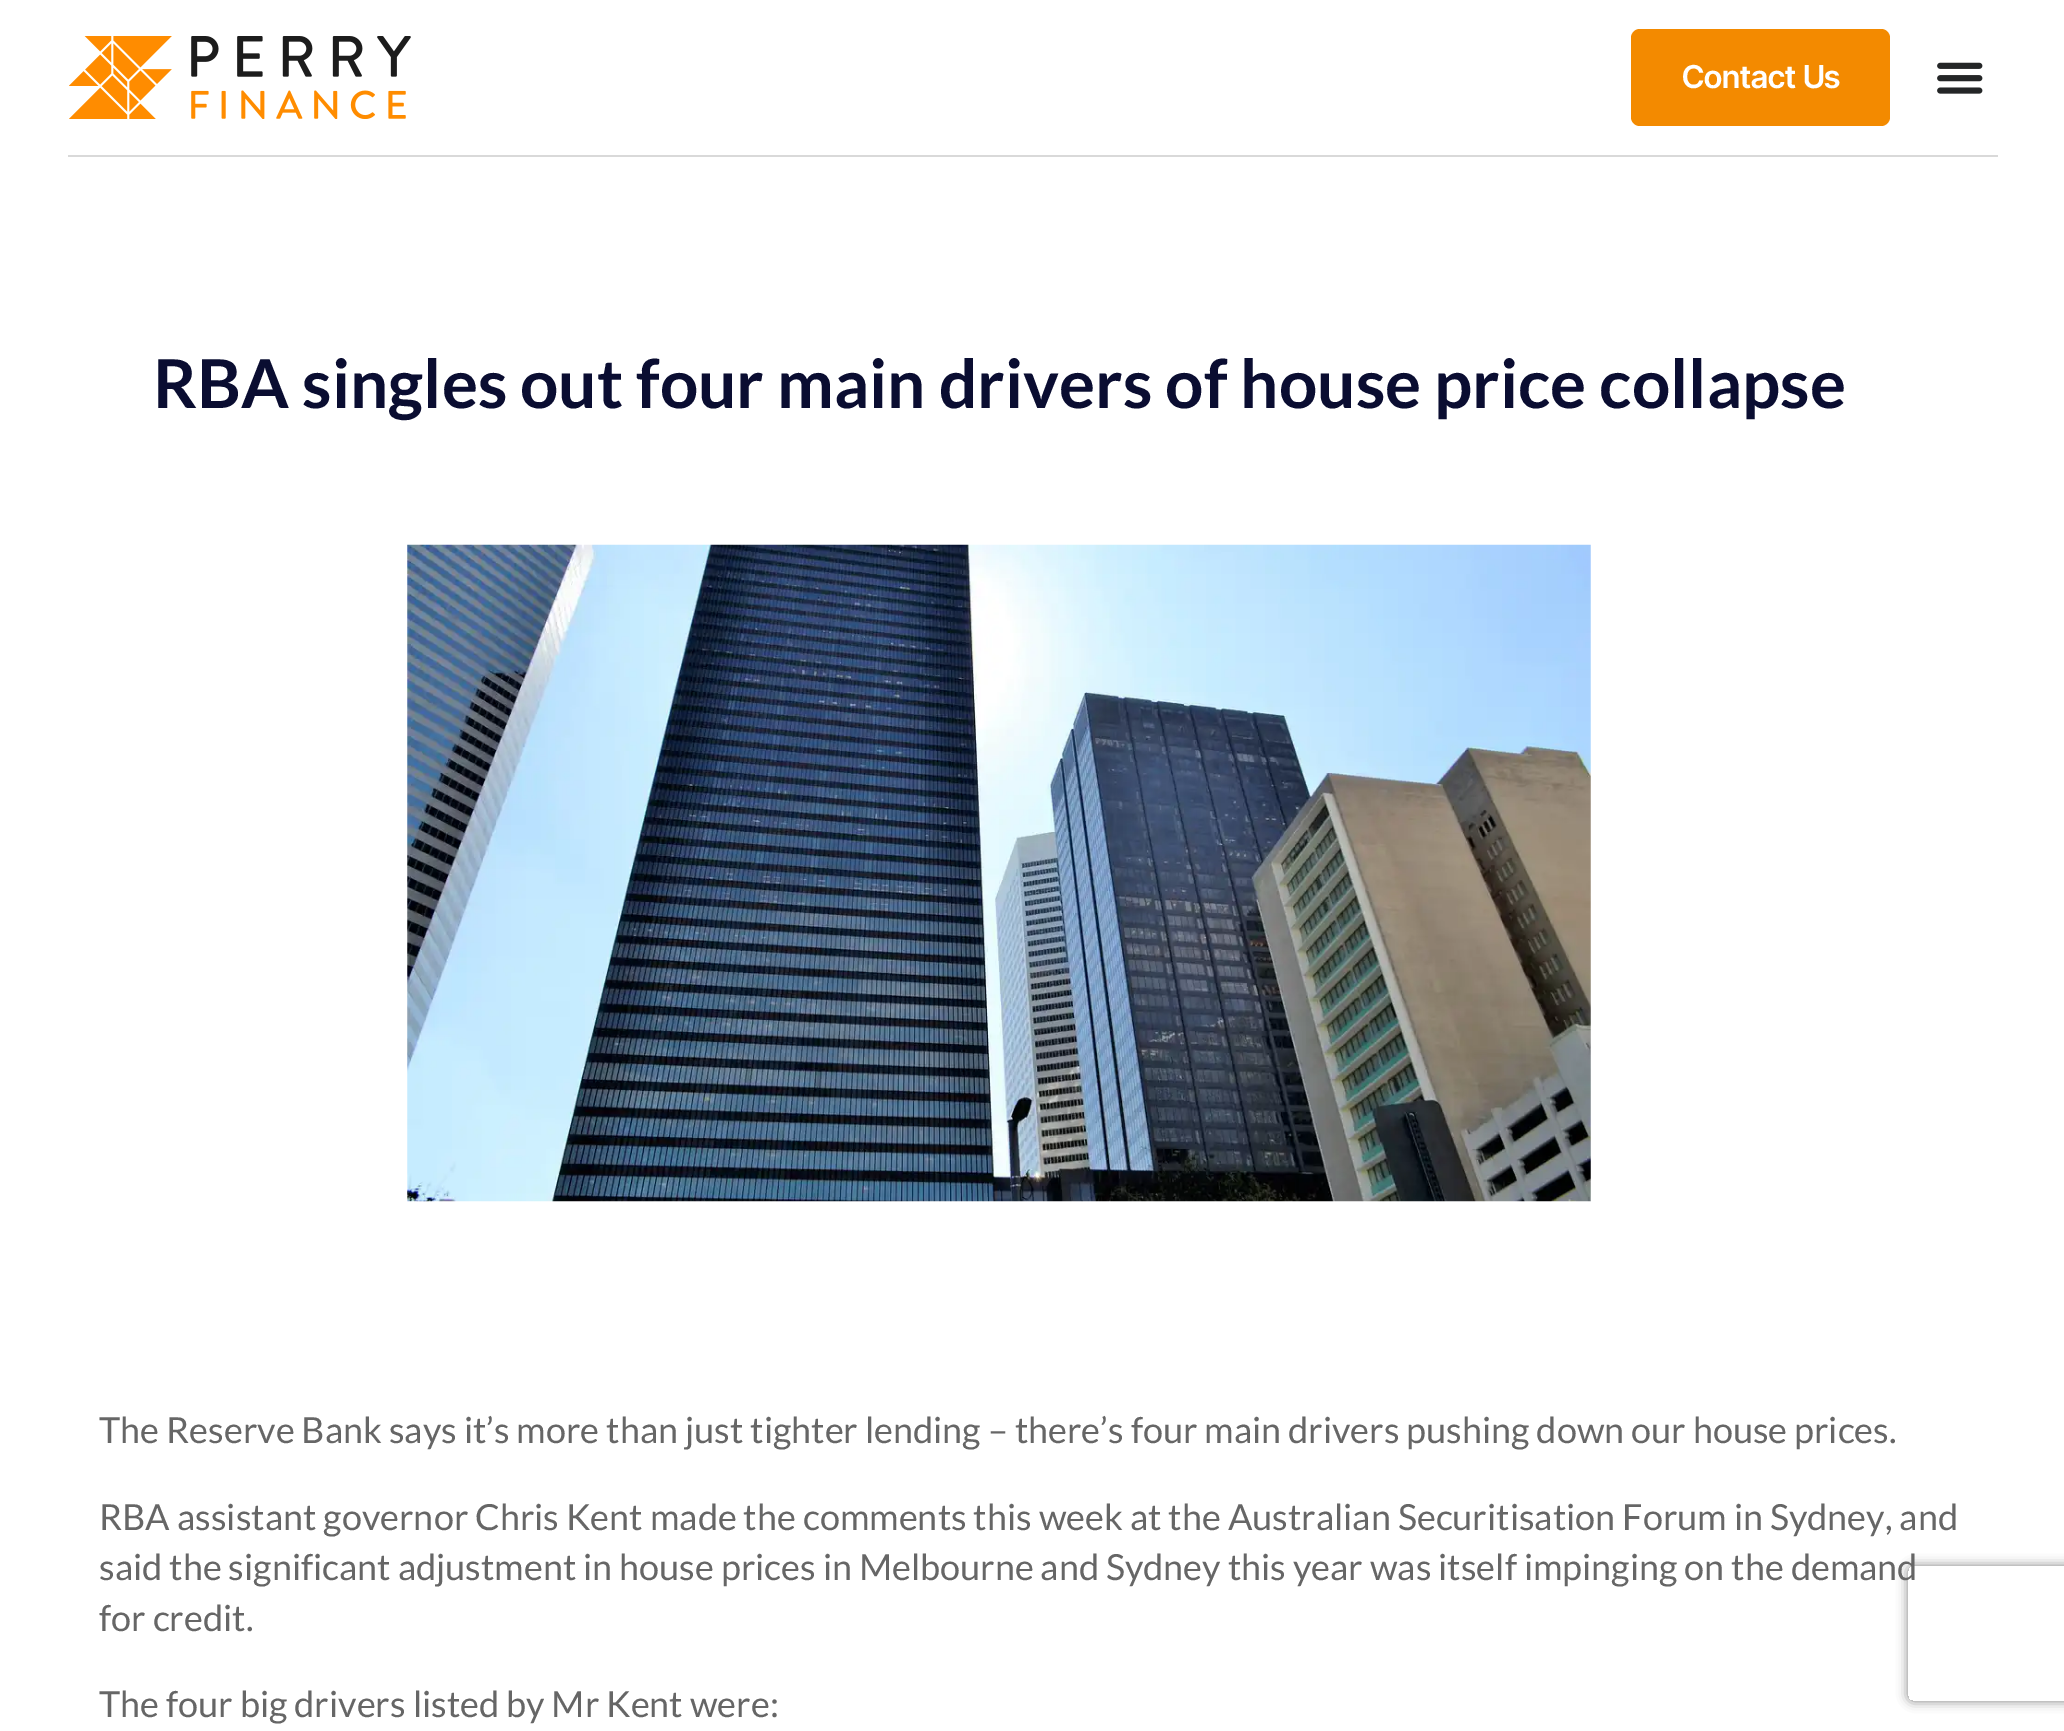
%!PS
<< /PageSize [2064 1731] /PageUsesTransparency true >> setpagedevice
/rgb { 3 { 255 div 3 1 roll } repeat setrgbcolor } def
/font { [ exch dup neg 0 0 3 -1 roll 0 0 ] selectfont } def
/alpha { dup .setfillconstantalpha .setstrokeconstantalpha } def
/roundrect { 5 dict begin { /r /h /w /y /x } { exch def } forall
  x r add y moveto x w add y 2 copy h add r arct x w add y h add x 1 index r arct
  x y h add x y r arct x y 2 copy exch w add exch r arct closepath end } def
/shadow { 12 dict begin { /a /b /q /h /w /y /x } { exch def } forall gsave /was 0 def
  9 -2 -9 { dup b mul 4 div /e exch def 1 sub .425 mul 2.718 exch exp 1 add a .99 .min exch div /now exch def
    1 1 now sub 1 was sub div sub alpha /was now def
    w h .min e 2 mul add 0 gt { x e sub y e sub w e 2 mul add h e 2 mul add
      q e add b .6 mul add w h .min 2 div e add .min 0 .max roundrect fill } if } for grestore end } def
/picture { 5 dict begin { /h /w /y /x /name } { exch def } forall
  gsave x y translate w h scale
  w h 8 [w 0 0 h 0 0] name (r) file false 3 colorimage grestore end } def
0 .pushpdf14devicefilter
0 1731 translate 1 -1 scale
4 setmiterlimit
255 255 255 rgb
0 0 2064 1731 rectfill
217 217 217 rgb
68 155 1930 2 rectfill
(img/1.rgb) 69 36 342 83 picture
243 138 0 rgb
1631 29 259 97 9 roundrect fill
(img/2.rgb) 1937 62 46 32 picture
(img/3.rgb) 407 544 1184 658 picture
gsave
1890 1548 moveto 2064 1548 lineto 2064 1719 lineto 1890 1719 lineto closepath 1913 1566 moveto 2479 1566 lineto 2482 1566 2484 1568 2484 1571 curveto 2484 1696 lineto 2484 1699 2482 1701 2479 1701 curveto 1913 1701 lineto 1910 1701 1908 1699 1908 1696 curveto 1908 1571 lineto 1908 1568 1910 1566 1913 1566 curveto closepath eoclip newpath
128 128 128 rgb
1908 1566 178 135 5 5.5 1 shadow
grestore
/InterTight-SemiBold 31.5 font
255 255 255 rgb
1682 88 moveto (Contact Us) show
/Lato-Bold 67.5 font
10 13 49 rgb
153 408 moveto (RBA singles out four main drivers of house price collapse) show
/Lato-Regular 36 font
102 102 102 rgb
[
  [(The Reserve Bank says it’s more than just tighter lending – there’s four main drivers pushing down our house prices.) 99 1443]
  [(RBA assistant governor Chris Kent made the comments this week at the Australian Securitisation Forum in Sydney, and) 99 1530]
  [(said the significant adjustment in house prices in Melbourne and Sydney this year was itself impinging on the demand) 99 1580]
  [(for credit.) 99 1631]
  [(The four big drivers listed by Mr Kent were:) 99 1717]
] { aload pop moveto show } forall
.poppdf14devicefilter showpage
